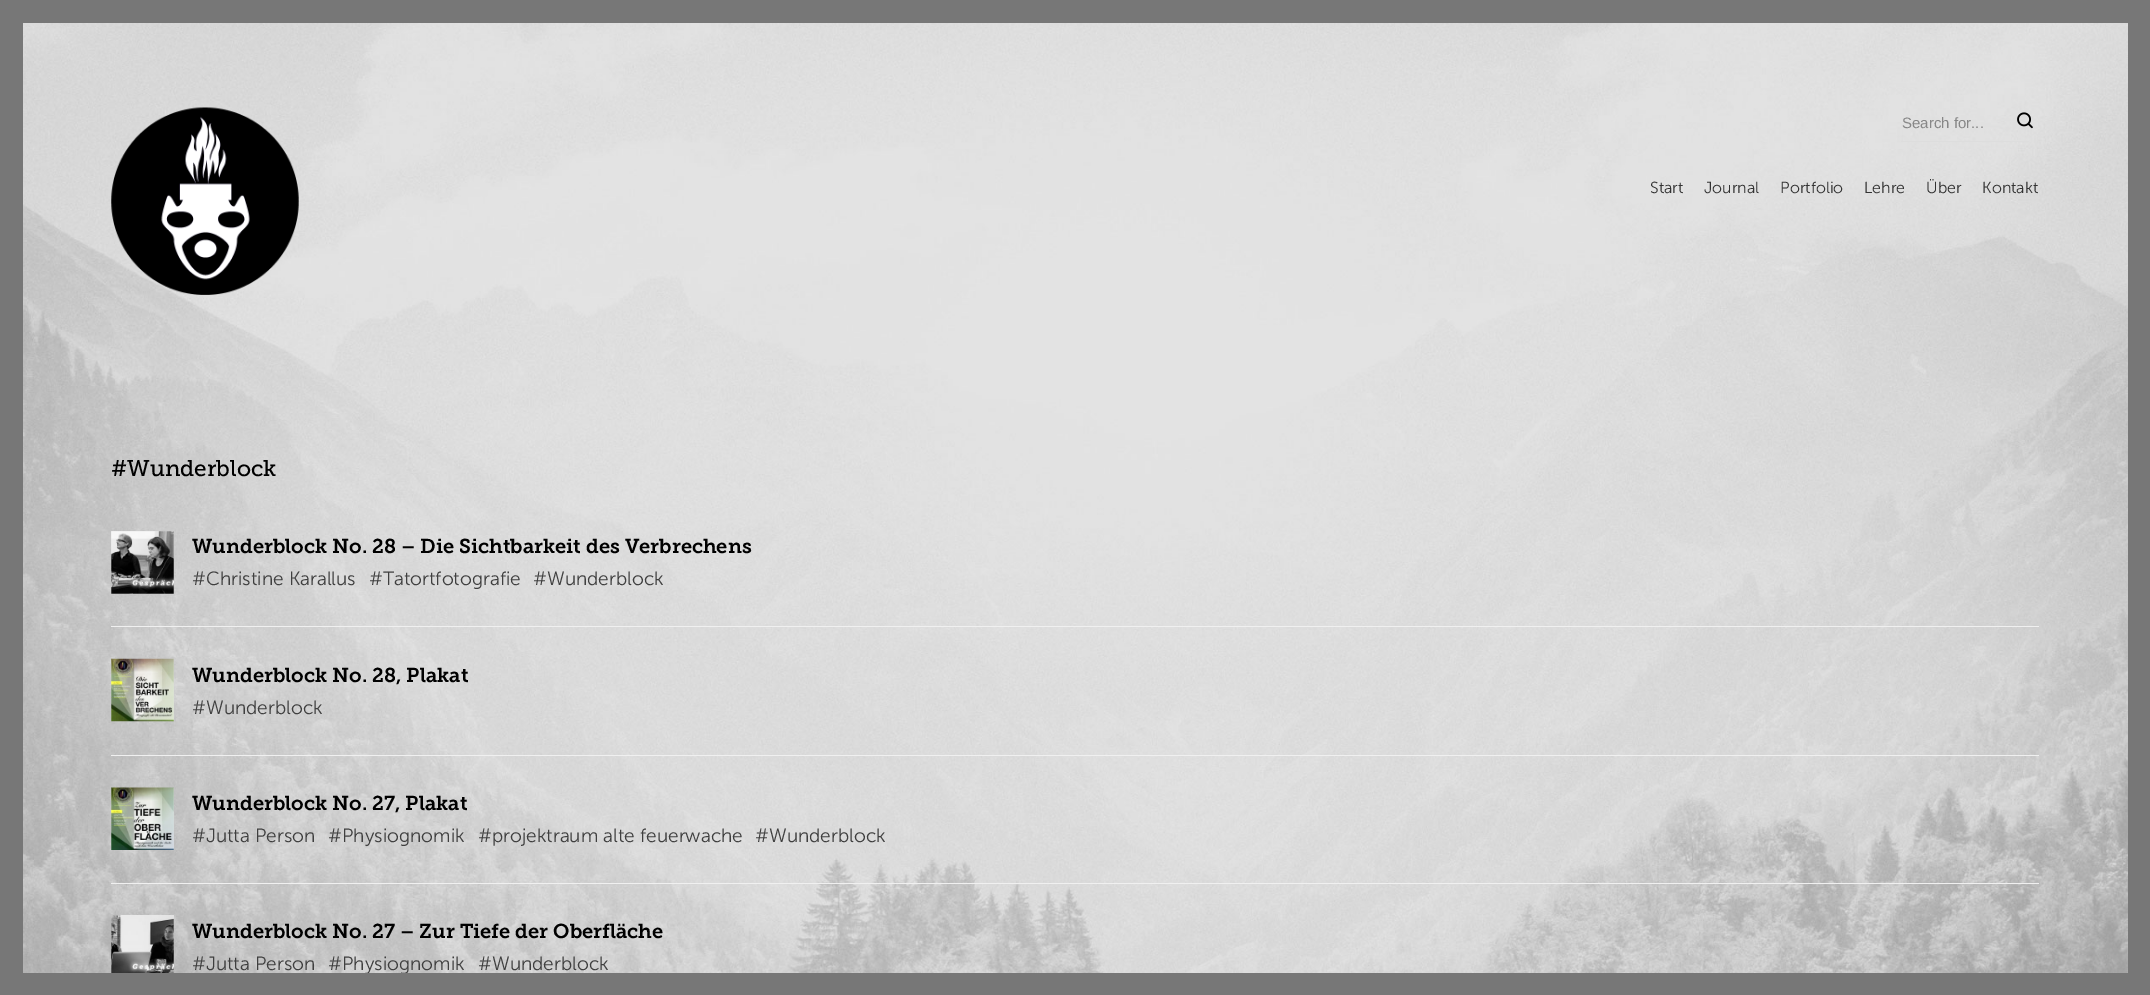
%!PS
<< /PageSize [2150 995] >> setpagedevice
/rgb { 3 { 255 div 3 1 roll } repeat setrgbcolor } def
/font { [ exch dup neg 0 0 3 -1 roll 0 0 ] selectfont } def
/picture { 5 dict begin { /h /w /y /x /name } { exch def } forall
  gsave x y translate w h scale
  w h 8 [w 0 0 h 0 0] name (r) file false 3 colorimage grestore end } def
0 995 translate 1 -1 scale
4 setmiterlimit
255 255 255 rgb
0 0 2150 995 rectfill
(img/1.rgb) 23 23 2105 950 picture
119 119 119 rgb
0 0 2150 23 rectfill
0 23 23 950 rectfill
(img/2.rgb) 111 107 188 188 picture
221 221 221 rgb
1901 141 128 1 rectfill
(img/3.rgb) 2017 112 16 17 picture
240 240 240 rgb
111 626 1928 1 rectfill
221 221 221 rgb
111 531 63 63 rectfill
(img/4.rgb) 111 531 63 63 picture
240 240 240 rgb
111 755 1928 1 rectfill
(img/5.rgb) 111 658 63 64 picture
111 883 1928 1 rectfill
(img/6.rgb) 111 787 63 63 picture
(img/7.rgb) 111 915 63 58 picture
119 119 119 rgb
2128 23 22 950 rectfill
/LiberationSans-Regular 15 font
135 135 135 rgb
1902 128 moveto (Search for...) show
/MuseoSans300-Light 16 font
51 51 51 rgb
[
  [(Start) 1650 193]
  [(Journal) 1704 193]
  [(Portfolio) 1780 193]
  [(Lehre) 1864 193]
  [(Über) 1926 193]
  [(Kontakt) 1982 193]
] { aload pop moveto show } forall
/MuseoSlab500-Regular 22.5 font
0 0 0 rgb
111 476 moveto (#Wunderblock) show
/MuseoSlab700-SemiBold 20 font
192 553 moveto (Wunderblock No. 28 – Die Sichtbarkeit des Verbrechens) show
/MuseoSans300-Light 19.1 font
63 63 63 rgb
[
  [(#Christine Karallus) 192 585]
  [(#Tatortfotografie) 369 585]
  [(#Wunderblock) 533 585]
] { aload pop moveto show } forall
/MuseoSlab700-SemiBold 20 font
0 0 0 rgb
192 682 moveto (Wunderblock No. 28, Plakat) show
/MuseoSans300-Light 19.1 font
63 63 63 rgb
192 714 moveto (#Wunderblock) show
/MuseoSlab700-SemiBold 20 font
0 0 0 rgb
192 810 moveto (Wunderblock No. 27, Plakat) show
/MuseoSans300-Light 19.1 font
63 63 63 rgb
[
  [(#Jutta Person) 192 842]
  [(#Physiognomik) 328 842]
  [(#projektraum alte feuerwache) 478 842]
  [(#Wunderblock) 755 842]
] { aload pop moveto show } forall
/MuseoSlab700-SemiBold 20 font
0 0 0 rgb
192 938 moveto (Wunderblock No. 27 – Zur Tiefe der Oberfläche) show
/MuseoSans300-Light 19.1 font
63 63 63 rgb
[
  [(#Jutta Person) 192 970]
  [(#Physiognomik) 328 970]
  [(#Wunderblock) 478 970]
] { aload pop moveto show } forall
119 119 119 rgb
0 973 2150 22 rectfill
showpage
